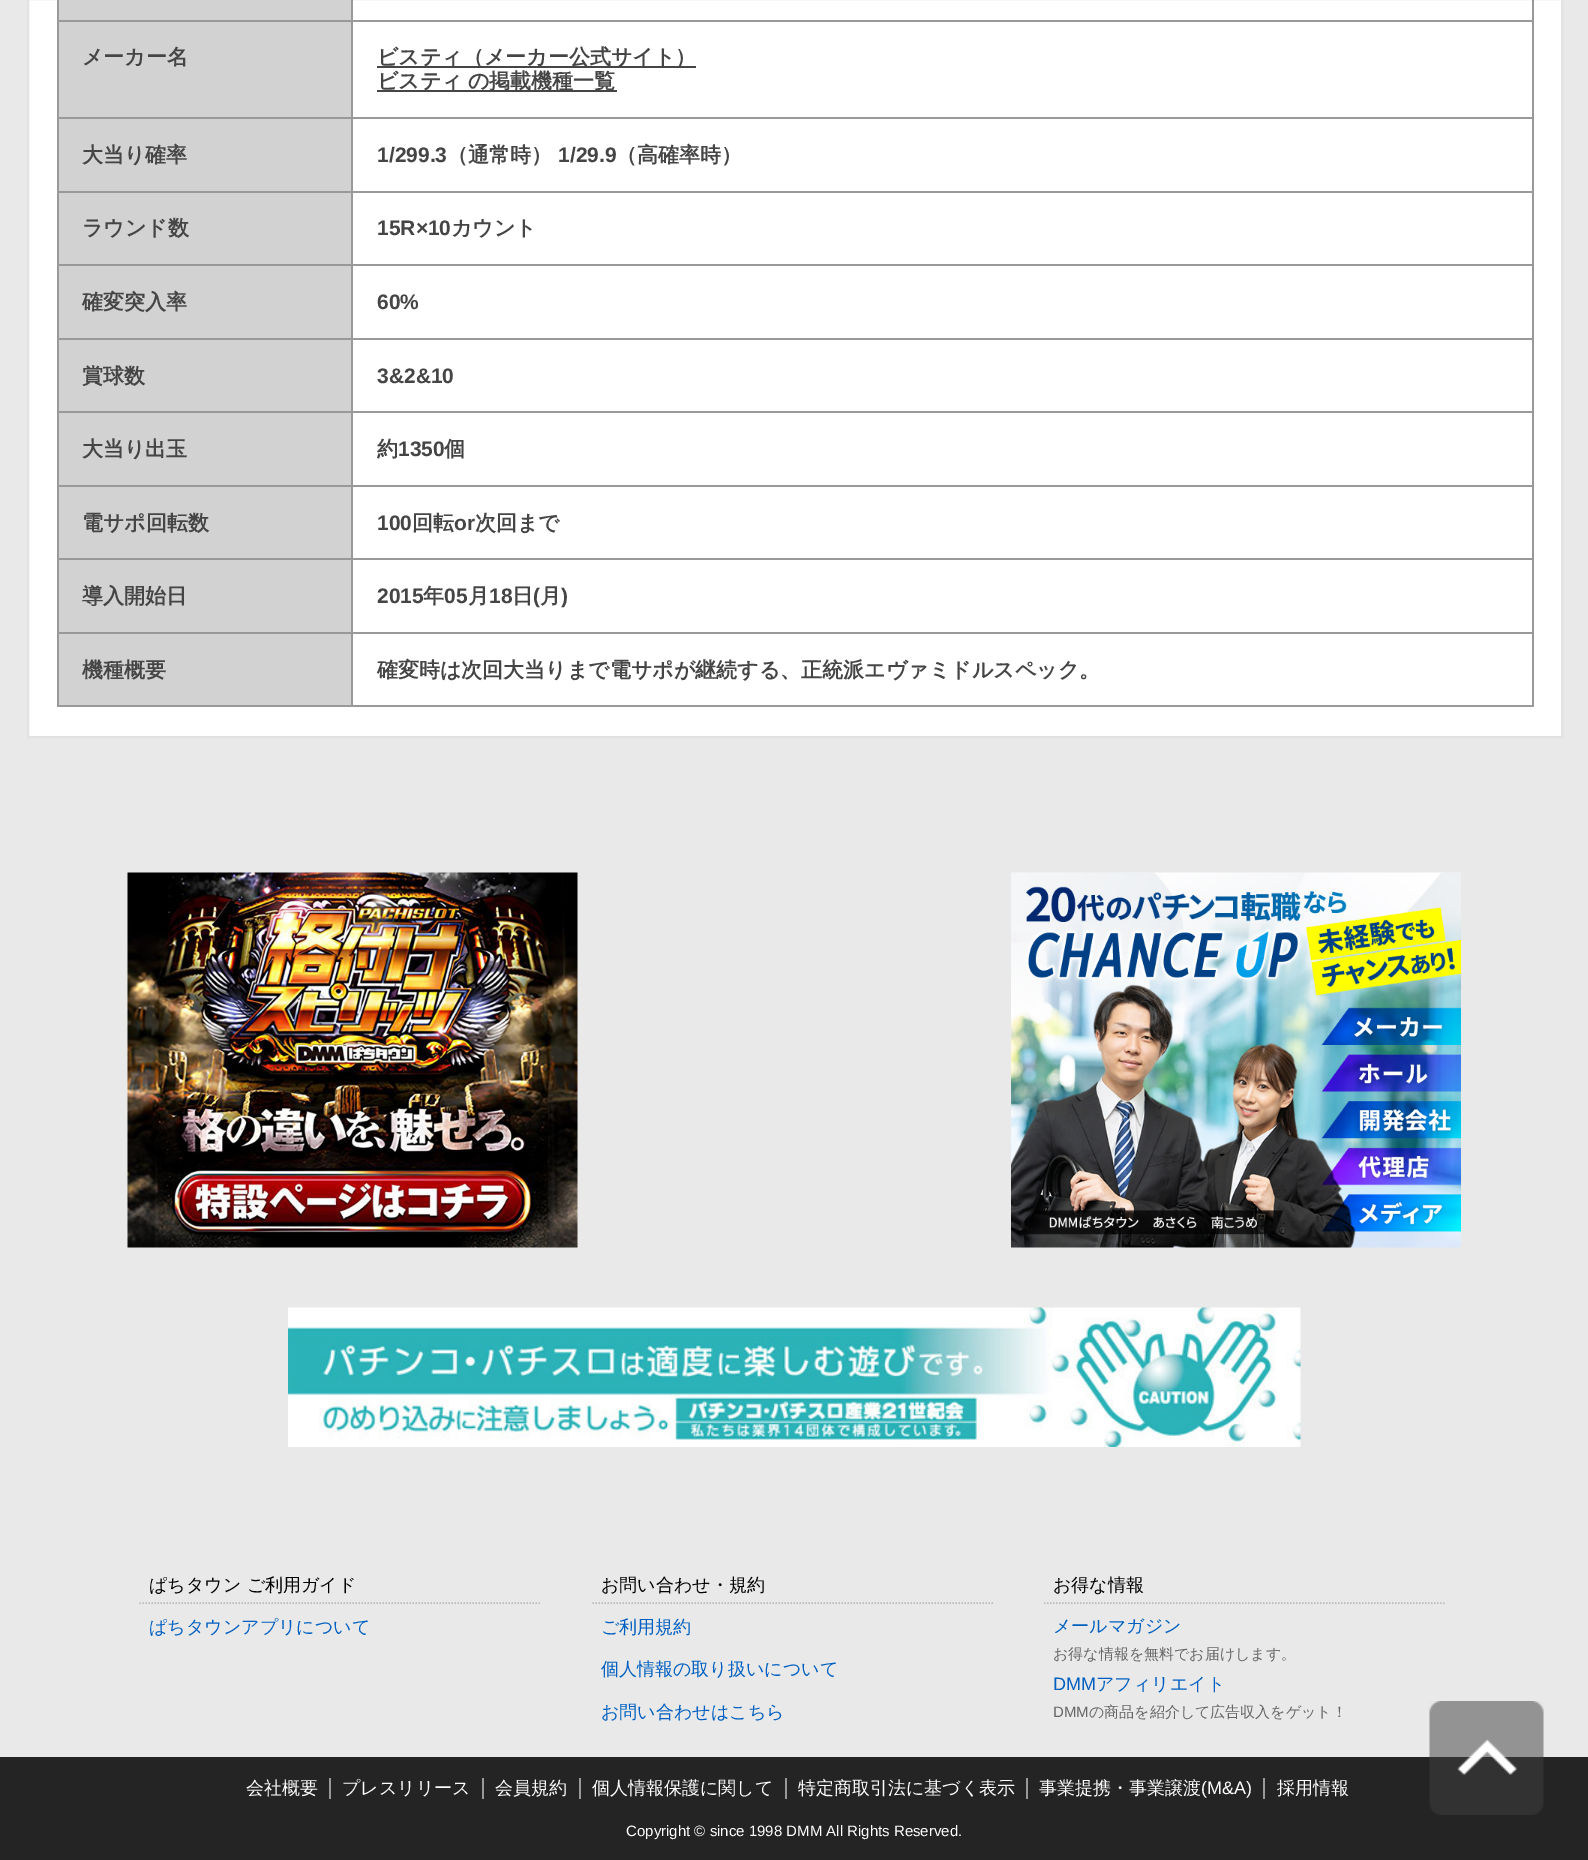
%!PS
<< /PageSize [1588 1860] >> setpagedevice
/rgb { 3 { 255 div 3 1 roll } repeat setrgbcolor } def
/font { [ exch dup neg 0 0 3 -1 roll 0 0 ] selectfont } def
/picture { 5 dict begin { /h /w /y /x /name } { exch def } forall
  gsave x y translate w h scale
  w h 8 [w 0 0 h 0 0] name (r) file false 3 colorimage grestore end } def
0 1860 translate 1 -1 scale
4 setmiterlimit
233 233 233 rgb
0 0 1588 1860 rectfill
255 255 255 rgb
28 -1 moveto 1562 -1 lineto 1562 737 lineto 28 737 lineto closepath gsave fill grestore
226 226 226 rgb
2 setlinewidth
stroke
[
  [59 0 292 20 210 210 210]
  [351 20 1182 2 153 153 153]
  [351 117 1182 2 153 153 153]
  [351 191 1182 2 153 153 153]
  [351 264 1182 2 153 153 153]
  [351 338 1182 2 153 153 153]
  [351 411 1182 2 153 153 153]
  [351 485 1182 2 153 153 153]
  [351 558 1182 2 153 153 153]
  [351 632 1182 2 153 153 153]
  [1532 632 2 75 153 153 153]
  [351 705 1182 2 153 153 153]
  [351 632 2 75 153 153 153]
  [57 632 296 2 153 153 153]
  [351 558 2 75 153 153 153]
  [57 558 296 2 153 153 153]
  [351 485 2 75 153 153 153]
  [57 485 296 2 153 153 153]
  [351 411 2 75 153 153 153]
  [57 411 296 2 153 153 153]
  [351 338 2 75 153 153 153]
  [57 338 296 2 153 153 153]
  [351 264 2 75 153 153 153]
  [57 264 296 2 153 153 153]
  [351 191 2 75 153 153 153]
  [57 191 296 2 153 153 153]
  [351 117 2 75 153 153 153]
  [57 117 296 2 153 153 153]
  [351 20 2 99 153 153 153]
  [57 20 296 2 153 153 153]
  [351 0 2 21 153 153 153]
  [59 22 292 95 210 210 210]
  [57 705 296 2 153 153 153]
  [57 632 2 75 153 153 153]
  [57 558 2 75 153 153 153]
  [57 485 2 75 153 153 153]
  [57 411 2 75 153 153 153]
  [57 338 2 75 153 153 153]
  [57 264 2 75 153 153 153]
  [57 191 2 75 153 153 153]
  [57 117 2 75 153 153 153]
  [57 0 2 119 153 153 153]
  [1532 558 2 75 153 153 153]
  [1532 485 2 75 153 153 153]
  [1532 411 2 75 153 153 153]
  [1532 338 2 75 153 153 153]
  [1532 264 2 75 153 153 153]
  [1532 191 2 75 153 153 153]
  [1532 117 2 75 153 153 153]
  [1532 0 2 119 153 153 153]
  [377 66 319 2 69 69 69]
  [377 90 240 2 69 69 69]
  [59 119 292 72 210 210 210]
  [59 193 292 71 210 210 210]
  [59 266 292 72 210 210 210]
  [59 340 292 71 210 210 210]
  [59 413 292 72 210 210 210]
  [59 487 292 71 210 210 210]
  [59 560 292 72 210 210 210]
  [59 634 292 71 210 210 210]
] { aload pop rgb rectfill } forall
(img/1.rgb) 127 872 451 376 picture
(img/2.rgb) 1011 872 450 376 picture
(img/3.rgb) 288 1307 1013 140 picture
187 187 187 rgb
1.5 setlinewidth
[1.5 1.5] 0 setdash
139.5 1603 moveto 541.5 1603 lineto stroke
592.5 1603 moveto 994.5 1603 lineto stroke
1044 1603 moveto 1446 1603 lineto stroke
[
  [0 1757 1588 103 36 36 36]
  [329 1778 2 21 153 153 153]
  [482 1778 2 21 153 153 153]
  [579 1778 2 21 153 153 153]
  [785 1778 2 21 153 153 153]
  [1026 1778 2 21 153 153 153]
  [1263 1778 2 21 153 153 153]
] { aload pop rgb rectfill } forall
(img/4.rgb) 1429 1701 115 114 picture
/WenQuanYiZenHei-Bold 21 font
69 69 69 rgb
[
  [(メーカー名) 82 64]
  [(ビスティ（メーカー公式サイト）) 377 64]
  [(ビスティ) 377 88]
  [(の掲載機種一覧) 468 88]
  [(大当り確率) 82 162]
] { aload pop moveto show } forall
/LiberationSans-Bold 21 font
377 162 moveto (1/299.3) show
/WenQuanYiZenHei-Bold 21 font
447 162 moveto (（通常時）) show
/LiberationSans-Bold 21 font
558 162 moveto (1/29.9) show
/WenQuanYiZenHei-Bold 21 font
616 162 moveto (（高確率時）) show
82 235 moveto (ラウンド数) show
/LiberationSans-Bold 21 font
377 235 moveto (15R×10) show
/WenQuanYiZenHei-Bold 21 font
451 235 moveto (カウント) show
82 309 moveto (確変突入率) show
/LiberationSans-Bold 21 font
377 309 moveto (60%) show
/WenQuanYiZenHei-Bold 21 font
82 383 moveto (賞球数) show
/LiberationSans-Bold 21 font
377 383 moveto (3&2&10) show
/WenQuanYiZenHei-Bold 21 font
82 456 moveto (大当り出玉) show
377 456 moveto (約) show
/LiberationSans-Bold 21 font
398 456 moveto (1350) show
/WenQuanYiZenHei-Bold 21 font
444 456 moveto (個) show
82 530 moveto (電サポ回転数) show
/LiberationSans-Bold 21 font
377 530 moveto (100) show
/WenQuanYiZenHei-Bold 21 font
412 530 moveto (回転) show
/LiberationSans-Bold 21 font
454 530 moveto (or) show
/WenQuanYiZenHei-Bold 21 font
475 530 moveto (次回まで) show
82 603 moveto (導入開始日) show
/LiberationSans-Bold 21 font
377 603 moveto (2015) show
/WenQuanYiZenHei-Bold 21 font
423 603 moveto (年) show
/LiberationSans-Bold 21 font
444 603 moveto (05) show
/WenQuanYiZenHei-Bold 21 font
468 603 moveto (月) show
/LiberationSans-Bold 21 font
489 603 moveto (18) show
/WenQuanYiZenHei-Bold 21 font
512 603 moveto (日) show
/LiberationSans-Bold 21 font
533 603 moveto (\() show
/WenQuanYiZenHei-Bold 21 font
540 603 moveto (月) show
/LiberationSans-Bold 21 font
561 603 moveto (\)) show
/WenQuanYiZenHei-Bold 21 font
82 677 moveto (機種概要) show
377 677 moveto (確変時は次回大当りまで電サポが継続する、正統派エヴァミドルスペック。) show
/WenQuanYiZenHei-Medium 18 font
0 0 0 rgb
149 1591 moveto (ぱちタウン ご利用ガイド) show
0 95 192 rgb
149 1633 moveto (ぱちタウンアプリについて) show
0 0 0 rgb
601 1591 moveto (お問い合わせ・規約) show
0 95 192 rgb
[
  [(ご利用規約) 601 1633]
  [(個人情報の取り扱いについて) 601 1675]
  [(お問い合わせはこちら) 601 1718]
] { aload pop moveto show } forall
0 0 0 rgb
1053 1591 moveto (お得な情報) show
0 95 192 rgb
1053 1632 moveto (メールマガジン) show
/WenQuanYiZenHei-Medium 15 font
102 102 102 rgb
1053 1659 moveto (お得な情報を無料でお届けします。) show
/LiberationSans-Regular 18 font
0 95 192 rgb
1053 1690 moveto (DMM) show
/WenQuanYiZenHei-Medium 18 font
1096 1690 moveto (アフィリエイト) show
/LiberationSans-Regular 15 font
102 102 102 rgb
1053 1717 moveto (DMM) show
/WenQuanYiZenHei-Medium 15 font
1089 1717 moveto (の商品を紹介して広告収入をゲット！) show
/WenQuanYiZenHei-Medium 18 font
255 255 255 rgb
[
  [(会社概要) 246 1794]
  [(プレスリリース) 342 1794]
  [(会員規約) 495 1794]
  [(個人情報保護に関して) 592 1794]
  [(特定商取引法に基づく表示) 798 1794]
  [(事業提携・事業譲渡) 1039 1794]
] { aload pop moveto show } forall
/LiberationSans-Regular 18 font
1201 1794 moveto (\(M&A\)) show
/WenQuanYiZenHei-Medium 18 font
1277 1794 moveto (採用情報) show
/LiberationSans-Regular 15 font
626 1836 moveto (Copyright © since 1998 DMM All Rights Reserved.) show
showpage
